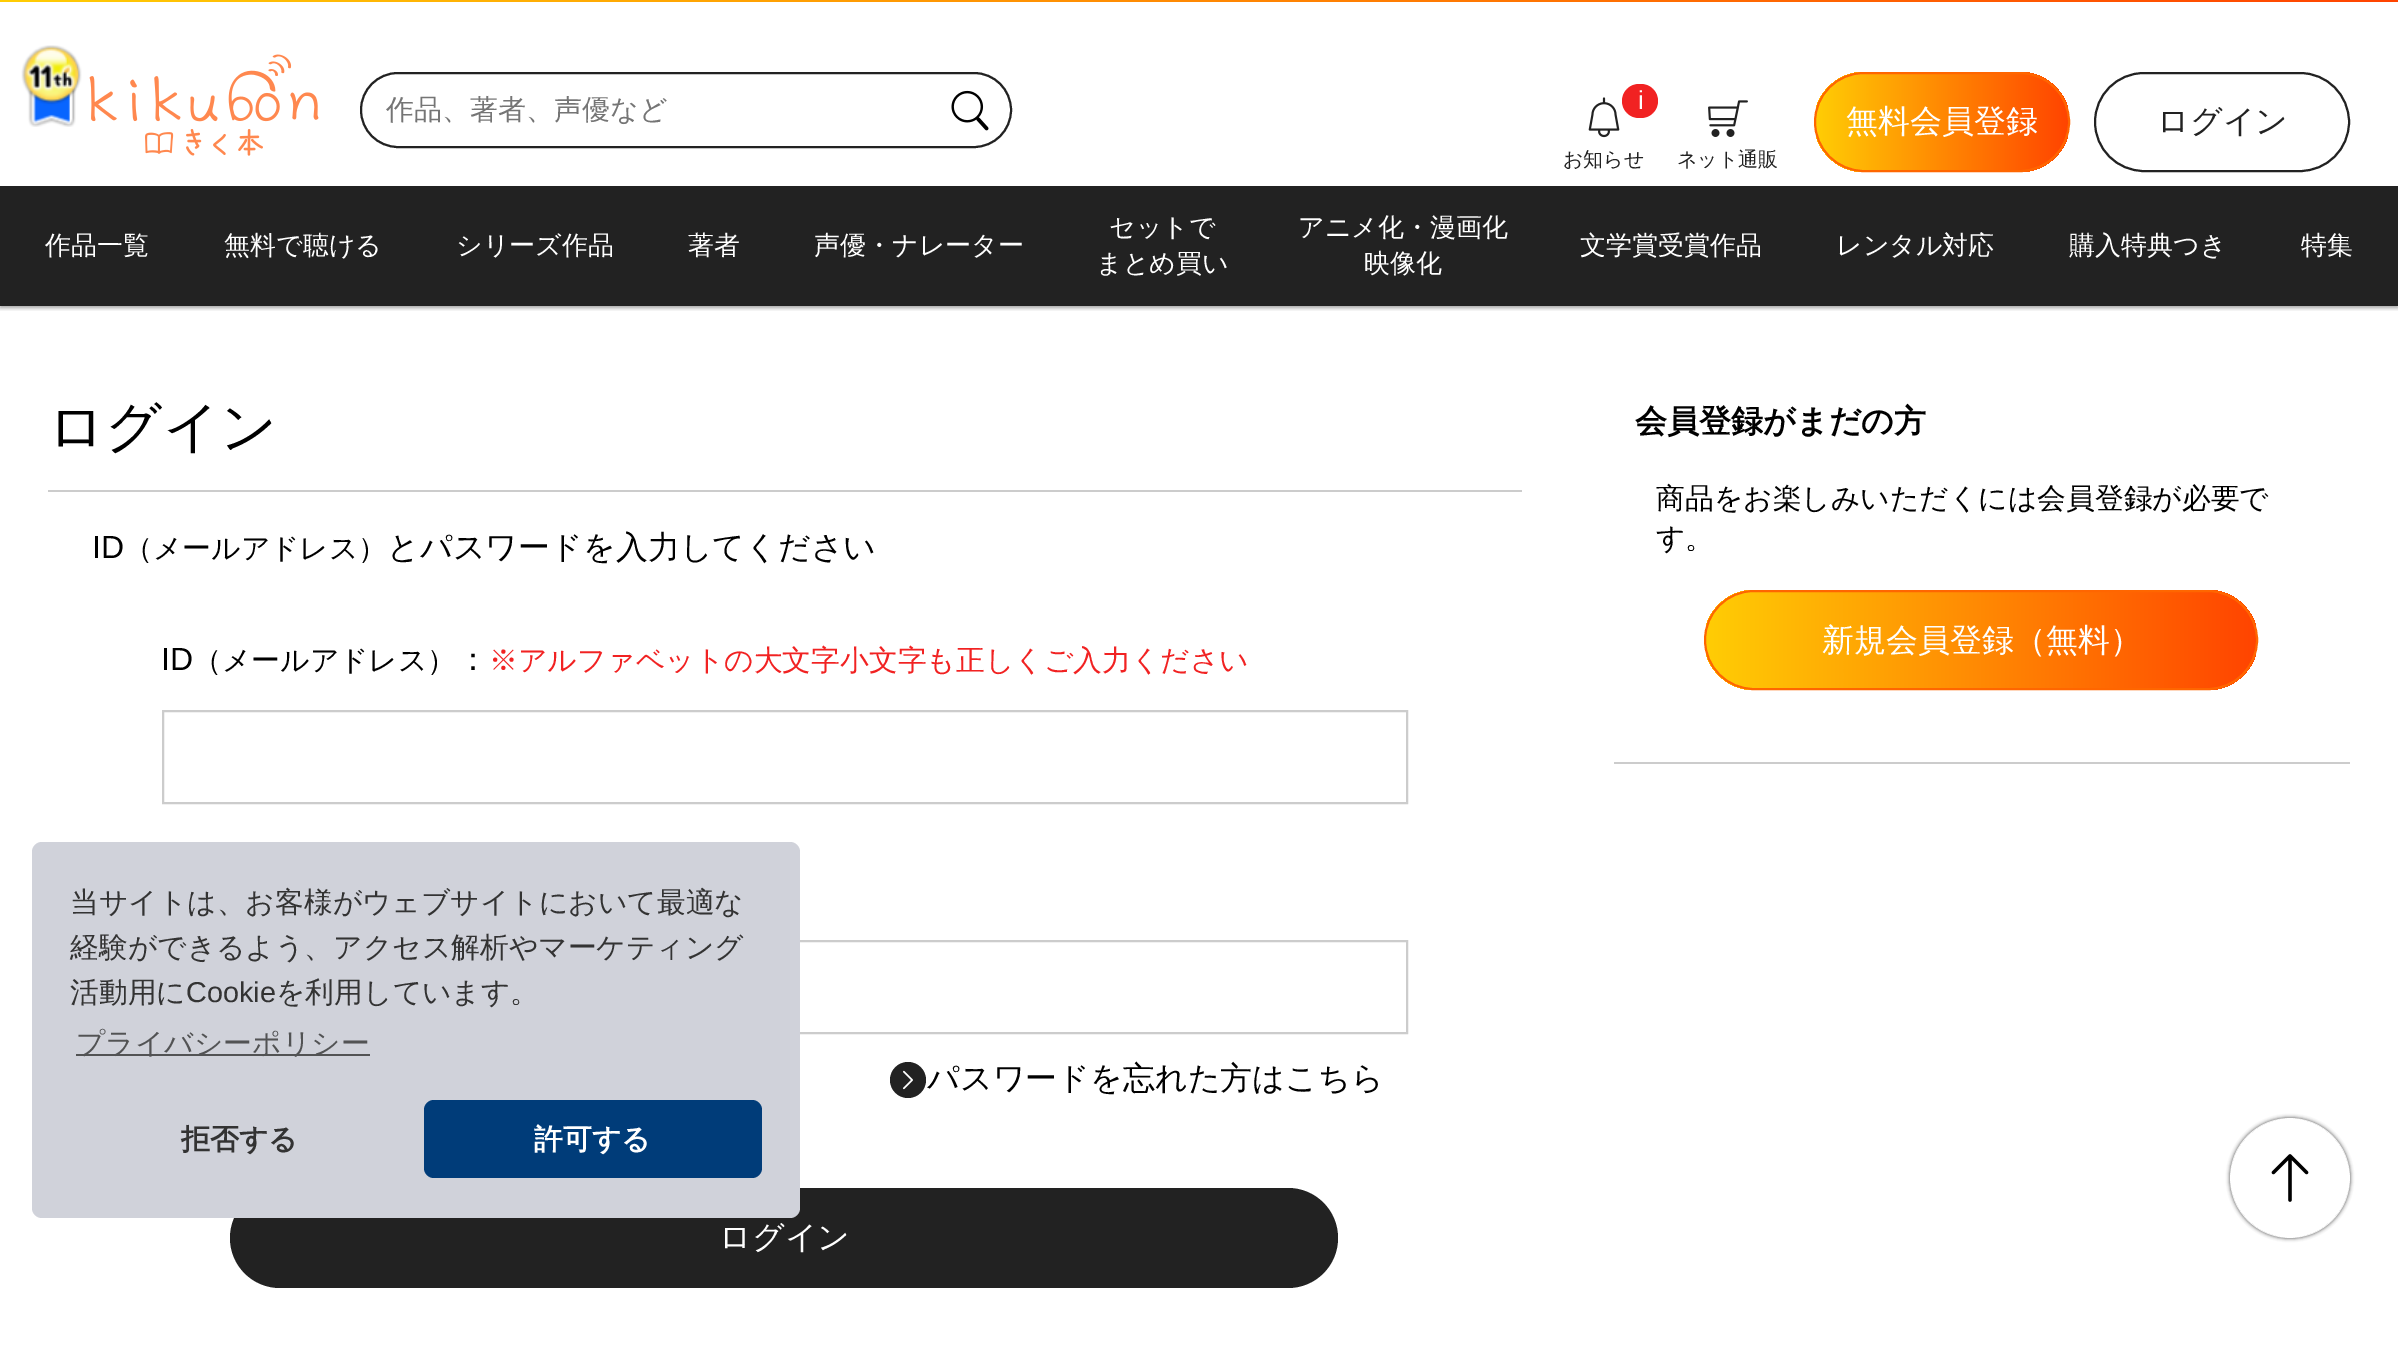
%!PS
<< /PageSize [2398 1357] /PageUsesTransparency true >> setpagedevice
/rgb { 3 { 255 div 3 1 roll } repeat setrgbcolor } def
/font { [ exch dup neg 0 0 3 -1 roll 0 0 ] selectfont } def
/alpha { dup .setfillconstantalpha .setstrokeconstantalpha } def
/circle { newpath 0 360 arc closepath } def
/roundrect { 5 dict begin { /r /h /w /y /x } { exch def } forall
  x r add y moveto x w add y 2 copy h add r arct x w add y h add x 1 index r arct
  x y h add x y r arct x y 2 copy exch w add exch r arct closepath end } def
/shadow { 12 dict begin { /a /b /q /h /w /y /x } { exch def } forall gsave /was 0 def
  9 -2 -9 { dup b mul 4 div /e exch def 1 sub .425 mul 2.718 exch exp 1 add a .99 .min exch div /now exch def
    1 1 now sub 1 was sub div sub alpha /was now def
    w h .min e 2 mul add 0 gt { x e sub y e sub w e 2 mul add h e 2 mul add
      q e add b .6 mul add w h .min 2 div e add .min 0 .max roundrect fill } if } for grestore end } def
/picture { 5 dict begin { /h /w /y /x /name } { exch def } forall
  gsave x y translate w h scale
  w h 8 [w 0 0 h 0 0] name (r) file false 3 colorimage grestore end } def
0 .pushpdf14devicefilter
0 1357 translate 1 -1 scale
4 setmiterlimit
255 255 255 rgb
0 0 2398 1357 rectfill
gsave
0 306 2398 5 rectclip
0 0 0 rgb
0 2 2398 306 0 2 0.35 shadow
grestore
gsave 0 0 moveto 2398 0 lineto 2398 2 lineto 0 2 lineto closepath clip newpath
<< /ShadingType 2 /ColorSpace /DeviceRGB /Coords [0 1 2398 1] /Extend [true true] /Function << /FunctionType 2 /Domain [0 1] /C0 [1 0.804 0.02] /C1 [1 0.267 0] /N 1 >> >> shfill grestore
(img/1.rgb) 21 45 61 82 picture
(img/2.rgb) 89 54 230 102 picture
34 34 34 rgb
2 setlinewidth
361 73 650 74 37 roundrect stroke
(img/3.rgb) 951 90 38 41 picture
241 34 34 rgb
1622 84 36 34 17 roundrect fill
(img/4.rgb) 1588 97 32 41 picture
gsave
1814 72 256 100 50 roundrect clip newpath
gsave 1816 72 moveto 2068 72 lineto 2068 172 lineto 1816 172 lineto closepath clip newpath
<< /ShadingType 2 /ColorSpace /DeviceRGB /Coords [1816 122 2068 122] /Extend [true true] /Function << /FunctionType 2 /Domain [0 1] /C0 [1 0.804 0.02] /C1 [1 0.267 0] /N 1 >> >> shfill grestore
grestore
255 102 0 rgb
1815 73 254 98 49 roundrect stroke
34 34 34 rgb
2095 73 254 98 49 roundrect stroke
(img/5.rgb) 1708 100 40 37 picture
0 186 2398 120 rectfill
204 204 204 rgb
48 490 1474 2 rectfill
163 711 1244 92 rectstroke
163 941 1244 92 rectstroke
34 34 34 rgb
908 1080 18 circle fill
(img/6.rgb) 903 1070 10 20 picture
230 1188 1108 100 50 roundrect fill
204 204 204 rgb
1614 762 736 2 rectfill
gsave
1704 590 554 100 50 roundrect clip newpath
gsave 1706 590 moveto 2256 590 lineto 2256 690 lineto 1706 690 lineto closepath clip newpath
<< /ShadingType 2 /ColorSpace /DeviceRGB /Coords [1706 640 2256 640] /Extend [true true] /Function << /FunctionType 2 /Domain [0 1] /C0 [1 0.804 0.02] /C1 [1 0.267 0] /N 1 >> >> shfill grestore
grestore
255 102 0 rgb
1705 591 552 98 49 roundrect stroke
gsave
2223 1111 moveto 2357 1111 lineto 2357 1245 lineto 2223 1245 lineto closepath 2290 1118 moveto 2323 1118 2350 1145 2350 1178 curveto 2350 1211 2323 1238 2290 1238 curveto 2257 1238 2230 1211 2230 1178 curveto 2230 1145 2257 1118 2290 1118 curveto closepath eoclip newpath
0 0 0 rgb
2230 1118 120 120 60 2 0.75 shadow
grestore
0.9 alpha
255 255 255 rgb
2290 1178 60 circle fill
1 alpha
(img/7.rgb) 2271 1154 38 48 picture
208 210 218 rgb
32 842 768 376 10 roundrect fill
82 83 84 rgb
76 1054 294 2 rectfill
0 60 121 rgb
424 1100 338 78 10 roundrect fill
/WenQuanYiZenHei-Medium 28 font
117 117 117 rgb
386 119 moveto (作品、著者、声優など) show
/LiberationSans-Regular 26 font
255 255 255 rgb
1638 109 moveto (i) show
/WenQuanYiZenHei-Medium 20 font
34 34 34 rgb
1563 166 moveto (お知らせ) show
/WenQuanYiZenHei-Medium 32 font
255 255 255 rgb
1846 132 moveto (無料会員登録) show
34 34 34 rgb
2157 132 moveto (ログイン) show
/WenQuanYiZenHei-Medium 20 font
1677 166 moveto (ネット通販) show
/WenQuanYiZenHei-Medium 26 font
255 255 255 rgb
[
  [(作品一覧) 45 254]
  [(無料で聴ける) 224 254]
  [(シリーズ作品) 456 254]
  [(著者) 688 254]
  [(声優・ナレーター) 814 254]
  [(セットで) 1109 236]
  [(まとめ買い) 1096 272]
  [(アニメ化・漫画化) 1298 236]
  [(映像化) 1364 272]
  [(文学賞受賞作品) 1580 254]
  [(レンタル対応) 1836 254]
  [(購入特典つき) 2069 254]
  [(特集) 2301 254]
] { aload pop moveto show } forall
/WenQuanYiZenHei-Medium 56 font
0 0 0 rgb
48 446 moveto (ログイン) show
/LiberationSans-Regular 32 font
92 558 moveto (ID) show
/WenQuanYiZenHei-Medium 28.8 font
124 558 moveto (（メールアドレス）) show
/WenQuanYiZenHei-Medium 32 font
387 558 moveto (とパスワードを入力してください) show
/LiberationSans-Regular 32 font
161 670 moveto (ID) show
/WenQuanYiZenHei-Medium 28.8 font
193 670 moveto (（メールアドレス）) show
/WenQuanYiZenHei-Medium 32 font
457 670 moveto (：) show
/WenQuanYiZenHei-Medium 28.8 font
241 34 34 rgb
489 670 moveto (※アルファベットの大文字小文字も正しくご入力ください) show
/WenQuanYiZenHei-Medium 32 font
0 0 0 rgb
927 1089 moveto (パスワードを忘れた方はこちら) show
255 255 255 rgb
719 1248 moveto (ログイン) show
/WenQuanYiZenHei-Bold 32 font
0 0 0 rgb
1635 432 moveto (会員登録がまだの方) show
/WenQuanYiZenHei-Medium 28.8 font
1656 508 moveto (商品をお楽しみいただくには会員登録が必要で) show
1656 548 moveto (す。) show
/WenQuanYiZenHei-Medium 32 font
255 255 255 rgb
1822 651 moveto (新規会員登録（無料）) show
/WenQuanYiZenHei-Medium 28.8 font
51 51 51 rgb
[
  [(当サイトは、お客様がウェブサイトにおいて最適な) 70 912]
  [(経験ができるよう、アクセス解析やマーケティング) 70 957]
  [(活動用に) 70 1002]
] { aload pop moveto show } forall
/LiberationSans-Regular 28.8 font
186 1002 moveto (Cookie) show
/WenQuanYiZenHei-Medium 28.8 font
276 1002 moveto (を利用しています。) show
82 83 84 rgb
76 1053 moveto (プライバシーポリシー) show
/WenQuanYiZenHei-Bold 28.8 font
51 51 51 rgb
181 1149 moveto (拒否する) show
255 255 255 rgb
534 1149 moveto (許可する) show
.poppdf14devicefilter showpage
